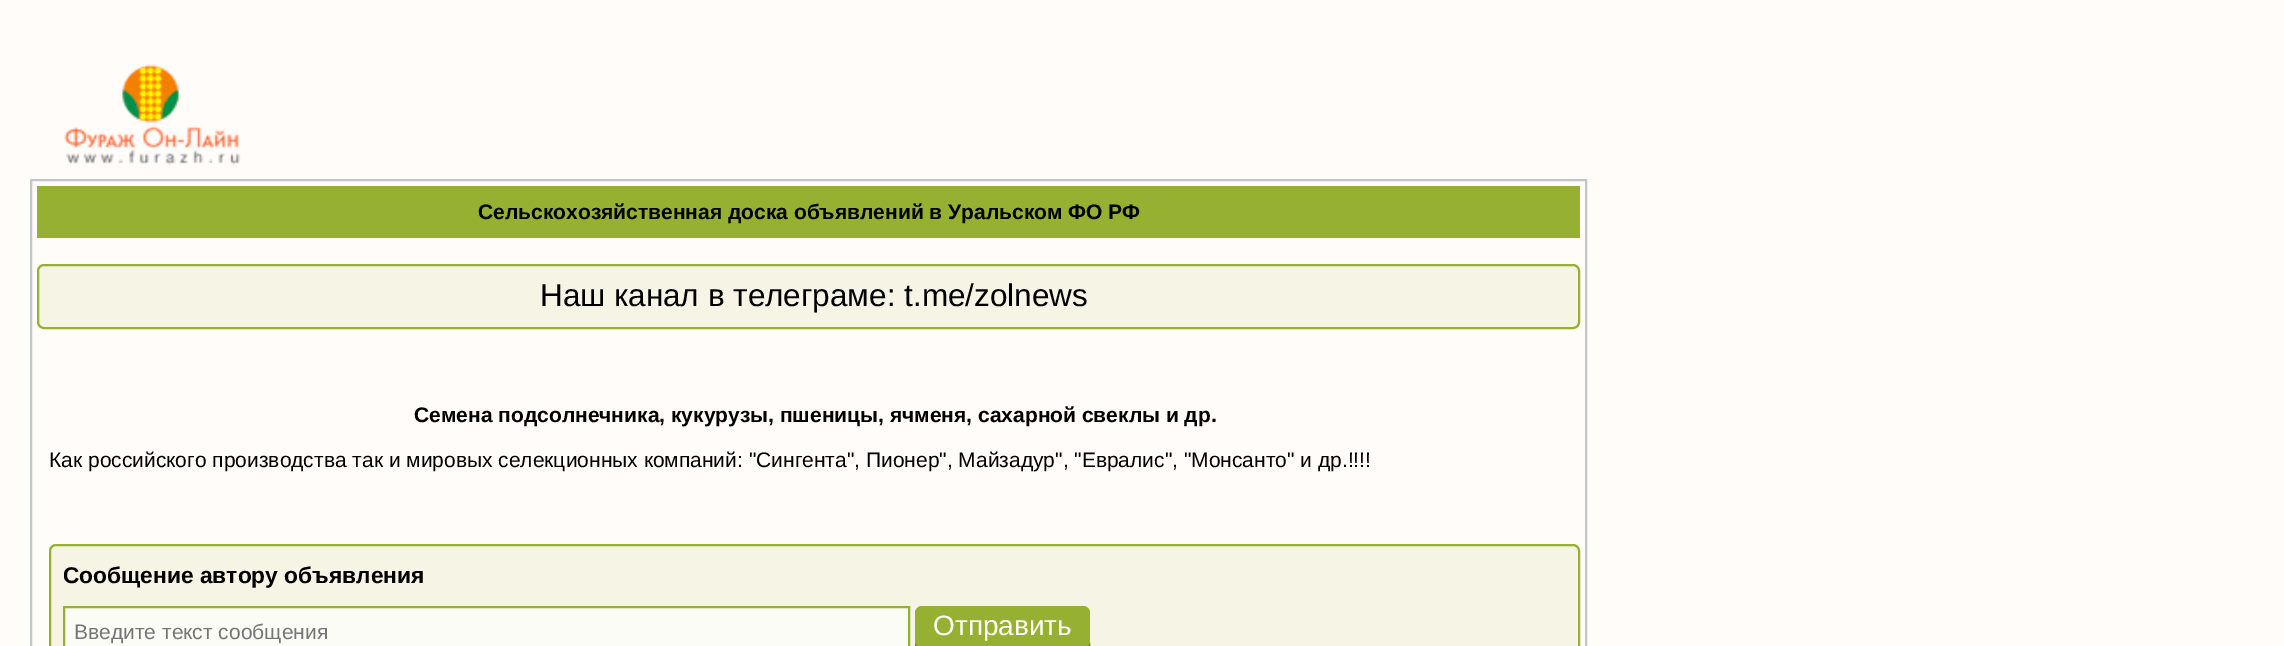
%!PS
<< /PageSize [2284 646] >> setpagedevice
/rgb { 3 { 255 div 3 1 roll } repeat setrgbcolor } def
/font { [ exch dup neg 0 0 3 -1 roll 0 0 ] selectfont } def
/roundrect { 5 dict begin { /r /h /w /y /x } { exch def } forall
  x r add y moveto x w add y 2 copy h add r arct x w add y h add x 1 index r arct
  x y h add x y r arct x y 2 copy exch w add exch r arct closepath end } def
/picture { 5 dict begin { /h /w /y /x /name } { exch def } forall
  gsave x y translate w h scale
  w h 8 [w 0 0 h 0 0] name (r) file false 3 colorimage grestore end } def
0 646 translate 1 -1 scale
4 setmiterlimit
255 252 249 rgb
0 0 2284 646 rectfill
(img/1.rgb) 64 64 177 101 picture
195 198 201 rgb
2 setlinewidth
31 180 1555 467 rectstroke
150 176 50 rgb
37 186 1543 52 rectfill
245 244 229 rgb
38 265 1541 63 6 roundrect gsave fill grestore
150 176 50 rgb
stroke
245 244 229 rgb
50 545 1529 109 6 roundrect gsave fill grestore
150 176 50 rgb
stroke
252 252 247 rgb
64 607 moveto 909 607 lineto 909 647 lineto 64 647 lineto closepath gsave fill grestore
150 176 50 rgb
stroke
102 128 2 rgb
915 619 moveto 915 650 lineto 917 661 939 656 949 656 curveto 1083 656 lineto 1091 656 1090 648 1090 642 curveto 1089 645 1086 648 1083 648 curveto 922 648 lineto 918 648 915 644 915 640 curveto closepath fill
150 176 50 rgb
915 606 175 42 7 roundrect fill
/LiberationSans-Bold 21 font
0 0 0 rgb
478 219 moveto (Сельскохозяйственная доска объявлений в Уральском ФО РФ) show
/LiberationSans-Regular 31.5 font
540 306 moveto (Наш канал в телеграме: t.me/zolnews) show
/LiberationSans-Bold 21 font
414 422 moveto (Семена подсолнечника, кукурузы, пшеницы, ячменя, сахарной свеклы и др.) show
/LiberationSans-Regular 21 font
49 467 moveto (Как российского производства так и мировых селекционных компаний: "Сингента", Пионер", Майзадур", "Евралис", "Монсанто" и др.!!!!) show
/LiberationSans-Bold 22.75 font
63 583 moveto (Сообщение автору объявления) show
/LiberationSans-Regular 21 font
117 117 117 rgb
74 639 moveto (Введите текст сообщения) show
/LiberationSans-Regular 28 font
255 255 255 rgb
933 635 moveto (Отправить) show
showpage
